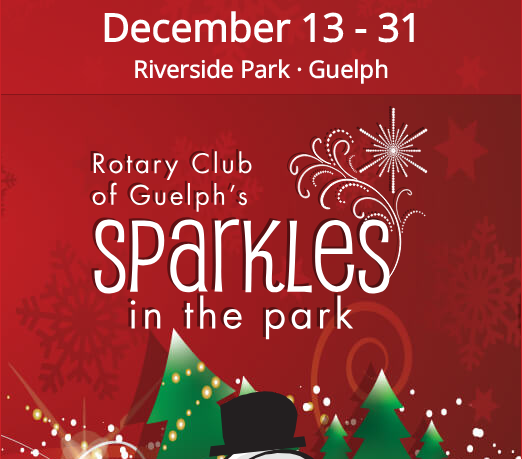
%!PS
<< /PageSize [522 459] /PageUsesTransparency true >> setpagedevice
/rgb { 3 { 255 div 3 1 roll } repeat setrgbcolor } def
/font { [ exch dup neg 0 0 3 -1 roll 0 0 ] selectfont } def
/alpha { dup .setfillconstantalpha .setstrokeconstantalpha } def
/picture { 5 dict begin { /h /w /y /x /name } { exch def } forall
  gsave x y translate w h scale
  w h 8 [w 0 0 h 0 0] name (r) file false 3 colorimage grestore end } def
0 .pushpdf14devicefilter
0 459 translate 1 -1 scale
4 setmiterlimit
255 255 255 rgb
0 0 522 459 rectfill
(img/1.rgb) 1 0 520 459 picture
[
  [521 0 1 459 201 32 39]
  [0 0 1 459 201 32 39]
] { aload pop rgb rectfill } forall
0.46 alpha
[
  [1 0 520 94 201 32 39]
] { aload pop rgb rectfill } forall
1 alpha
[
  [1 94 520 1 135 21 26]
] { aload pop rgb rectfill } forall
(img/2.rgb) 89 106 339 234 picture
(img/3.rgb) 209 391 105 68 picture
/OpenSans-Bold 39 font
255 255 255 rgb
101 42 moveto (December 13 - 31) show
/OpenSans-Bold 23.75 font
133 78 moveto (Riverside Park · Guelph) show
.poppdf14devicefilter showpage
